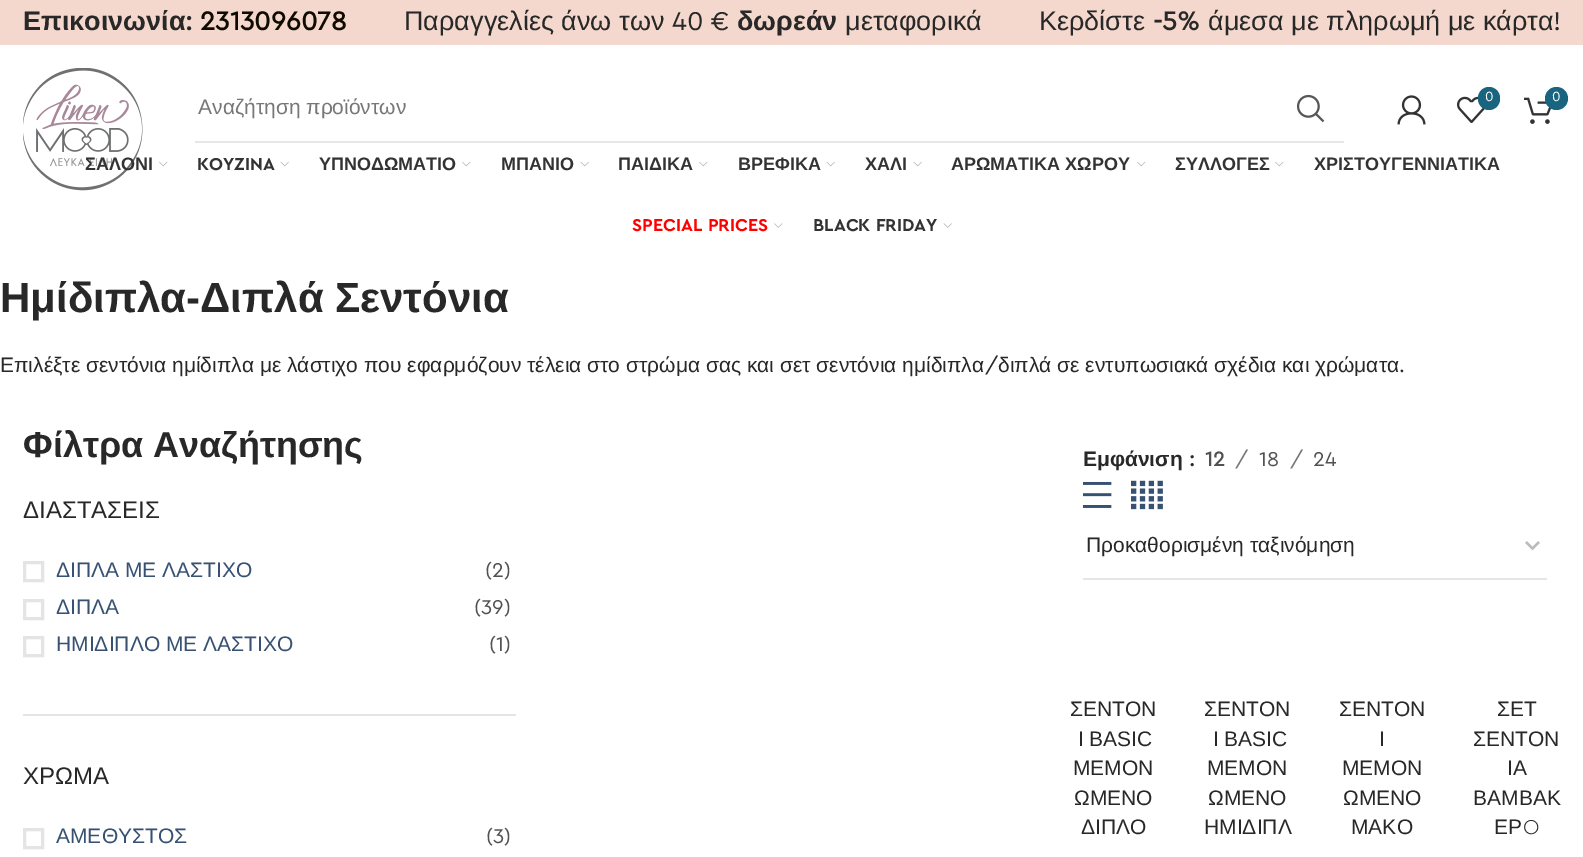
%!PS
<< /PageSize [1583 857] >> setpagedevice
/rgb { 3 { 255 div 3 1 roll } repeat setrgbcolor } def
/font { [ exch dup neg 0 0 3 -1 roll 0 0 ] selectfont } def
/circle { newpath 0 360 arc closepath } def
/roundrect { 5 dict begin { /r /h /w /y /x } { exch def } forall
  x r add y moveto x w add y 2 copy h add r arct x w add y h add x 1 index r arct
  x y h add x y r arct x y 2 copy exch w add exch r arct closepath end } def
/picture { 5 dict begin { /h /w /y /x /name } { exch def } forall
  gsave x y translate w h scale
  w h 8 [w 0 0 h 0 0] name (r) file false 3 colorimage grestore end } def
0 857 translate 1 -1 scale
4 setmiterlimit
255 255 255 rgb
0 0 1583 857 rectfill
244 216 205 rgb
0 0 1583 45 rectfill
(img/1.rgb) 23 68 120 123 picture
(img/2.rgb) 1397 95 29 30 picture
(img/3.rgb) 1457 96 28 27 picture
25 100 126 rgb
1478 87 22 23 11 roundrect fill
(img/4.rgb) 1524 97 28 27 picture
1556.5 98.5 11.5 circle fill
230 230 230 rgb
195 141 1149 2 rectfill
(img/5.rgb) 1296 94 29 29 picture
(img/6.rgb) 159 161 9 6 picture
(img/7.rgb) 280 161 9 6 picture
(img/6.rgb) 462 161 9 6 picture
(img/7.rgb) 580 161 9 6 picture
(img/6.rgb) 699 161 9 6 picture
(img/7.rgb) 826 161 9 6 picture
(img/7.rgb) 913 161 9 6 picture
(img/6.rgb) 1137 161 9 6 picture
(img/6.rgb) 1275 161 9 6 picture
(img/8.rgb) 774 223 9 5 picture
(img/9.rgb) 943 223 9 5 picture
228 228 228 rgb
23 714 493 2 rectfill
3 setlinewidth
24.5 562.5 18 18 rectstroke
24.5 600.5 18 18 rectstroke
24.5 637.5 18 18 rectstroke
24.5 829.5 18 18 rectstroke
(img/10.rgb) 1083 481 29 27 picture
(img/11.rgb) 1131 480 32 30 picture
187 187 187 rgb
2.2 setlinewidth
1526 542 moveto 1532.5 548.5 lineto 1539 542 lineto stroke
230 230 230 rgb
1083 578 464 2 rectfill
/LiberationSans-Bold 27 font
40 40 40 rgb
23 30 moveto (Επικοινωνία) show
/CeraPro-Bold 27 font
185 30 moveto (:) show
16 11 0 rgb
200 30 moveto (2313096078) show
/LiberationSans-Regular 27 font
40 40 40 rgb
404 30 moveto (Παραγγελίες άνω των) show
/CeraPro-Regular 27 font
672 30 moveto (40 €) show
/LiberationSans-Bold 27 font
737 30 moveto (δωρεάν) show
/LiberationSans-Regular 27 font
845 30 moveto (μεταφορικά) show
1039 30 moveto (Κερδίστε) show
/CeraPro-Bold 27 font
1153 30 moveto (-5%) show
/LiberationSans-Regular 27 font
1208 30 moveto (άμεσα με πληρωμή με κάρτα) show
/CeraPro-Regular 27 font
1553 30 moveto (!) show
/CeraPro-Regular 14 font
255 255 255 rgb
1485 101 moveto (0) show
1552 101 moveto (0) show
/LiberationSans-Regular 21 font
119 119 119 rgb
198 114 moveto (Αναζήτηση προϊόντων) show
/LiberationSans-Bold 18 font
51 51 51 rgb
85 170 moveto (ΣΑΛΟΝΙ) show
/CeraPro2-Bold 18 font
197 170 moveto (KOYZINA) show
/LiberationSans-Bold 18 font
[
  [(ΥΠΝΟΔΩΜΑΤΙΟ) 319 170]
  [(ΜΠΑΝΙΟ) 501 170]
  [(ΠΑΙΔΙΚΑ) 618 170]
  [(ΒΡΕΦΙΚΑ) 738 170]
  [(ΧΑΛΙ) 865 170]
  [(ΑΡΩΜΑΤΙΚΑ ΧΩΡΟΥ) 951 170]
  [(ΣΥΛΛΟΓΕΣ) 1175 170]
  [(ΧΡΙΣΤΟΥΓΕΝΝΙΑΤΙΚΑ) 1314 170]
] { aload pop moveto show } forall
/CeraPro2-Bold 18 font
255 0 0 rgb
632 231 moveto (SPECIAL PRICES) show
51 51 51 rgb
813 231 moveto (BLACK FRIDAY) show
/LiberationSans-Bold 42 font
40 40 40 rgb
0 312 moveto (Ημίδιπλα-Διπλά Σεντόνια) show
/LiberationSans-Regular 21 font
0 372 moveto (Επιλέξτε σεντόνια ημίδιπλα με λάστιχο που εφαρμόζουν τέλεια στο στρώμα σας και σετ σεντόνια ημίδιπλα) show
/CeraPro-Regular 21 font
985 372 moveto (/) show
/LiberationSans-Regular 21 font
998 372 moveto (διπλά σε εντυπωσιακά σχέδια και χρώματα) show
/CeraPro-Regular 21 font
1399 372 moveto (.) show
/LiberationSans-Bold 36 font
23 457 moveto (Φίλτρα Αναζήτησης) show
/LiberationSans-Regular 24 font
23 518 moveto (ΔΙΑΣΤΑΣΕΙΣ) show
/LiberationSans-Regular 21 font
54 81 114 rgb
56 577 moveto (ΔΙΠΛΑ ΜΕ ΛΑΣΤΙΧΟ) show
/CeraPro-Regular 21 font
82 82 82 rgb
485 577 moveto (\(2\)) show
/LiberationSans-Regular 21 font
54 81 114 rgb
56 614 moveto (ΔΙΠΛΑ) show
/CeraPro-Regular 21 font
82 82 82 rgb
474 614 moveto (\(39\)) show
/LiberationSans-Regular 21 font
54 81 114 rgb
56 651 moveto (ΗΜΙΔΙΠΛΟ ΜΕ ΛΑΣΤΙΧΟ) show
/CeraPro-Regular 21 font
82 82 82 rgb
489 651 moveto (\(1\)) show
/LiberationSans-Regular 24 font
40 40 40 rgb
23 784 moveto (ΧΡΩΜΑ) show
/LiberationSans-Regular 21 font
54 81 114 rgb
56 843 moveto (ΑΜΕΘΥΣΤΟΣ) show
/CeraPro-Regular 21 font
82 82 82 rgb
486 843 moveto (\(3\)) show
/LiberationSans-Bold 21 font
40 40 40 rgb
1083 466 moveto (Εμφάνιση) show
/CeraPro-Bold 21 font
1189 466 moveto (:) show
82 82 82 rgb
1205 466 moveto (12) show
/CeraPro-Regular 21 font
119 119 119 rgb
1235 466 moveto (/) show
82 82 82 rgb
1259 466 moveto (18) show
119 119 119 rgb
1290 466 moveto (/) show
82 82 82 rgb
1313 466 moveto (24) show
/LiberationSans-Regular 21 font
40 40 40 rgb
1086 552 moveto (Προκαθορισμένη ταξινόμηση) show
1070 716 moveto (ΣΕΝΤΟΝ) show
1078 746 moveto -1 0 32 (Ι BASIC) widthshow
[
  [(ΜΕΜΟΝ) 1073 775]
  [(ΩΜΕΝΟ) 1074 805]
  [(ΔΙΠΛΟ) 1081 834]
  [(ΣΕΝΤΟΝ) 1204 716]
] { aload pop moveto show } forall
1213 746 moveto -1 0 32 (Ι BASIC) widthshow
[
  [(ΜΕΜΟΝ) 1207 775]
  [(ΩΜΕΝΟ) 1208 805]
  [(ΗΜΙΔΙΠΛ) 1204 834]
  [(ΣΕΝΤΟΝ) 1339 716]
  [(Ι) 1379 746]
  [(ΜΕΜΟΝ) 1342 775]
  [(ΩΜΕΝΟ) 1343 805]
  [(ΜΑΚΟ) 1351 834]
  [(ΣΕΤ) 1497 716]
  [(ΣΕΝΤΟΝ) 1473 746]
  [(ΙΑ) 1507 775]
  [(ΒΑΜΒΑΚ) 1473 805]
  [(ΕΡ) 1494 834]
] { aload pop moveto show } forall
/CeraPro-Light 21 font
1523 834 moveto (O) show
showpage
